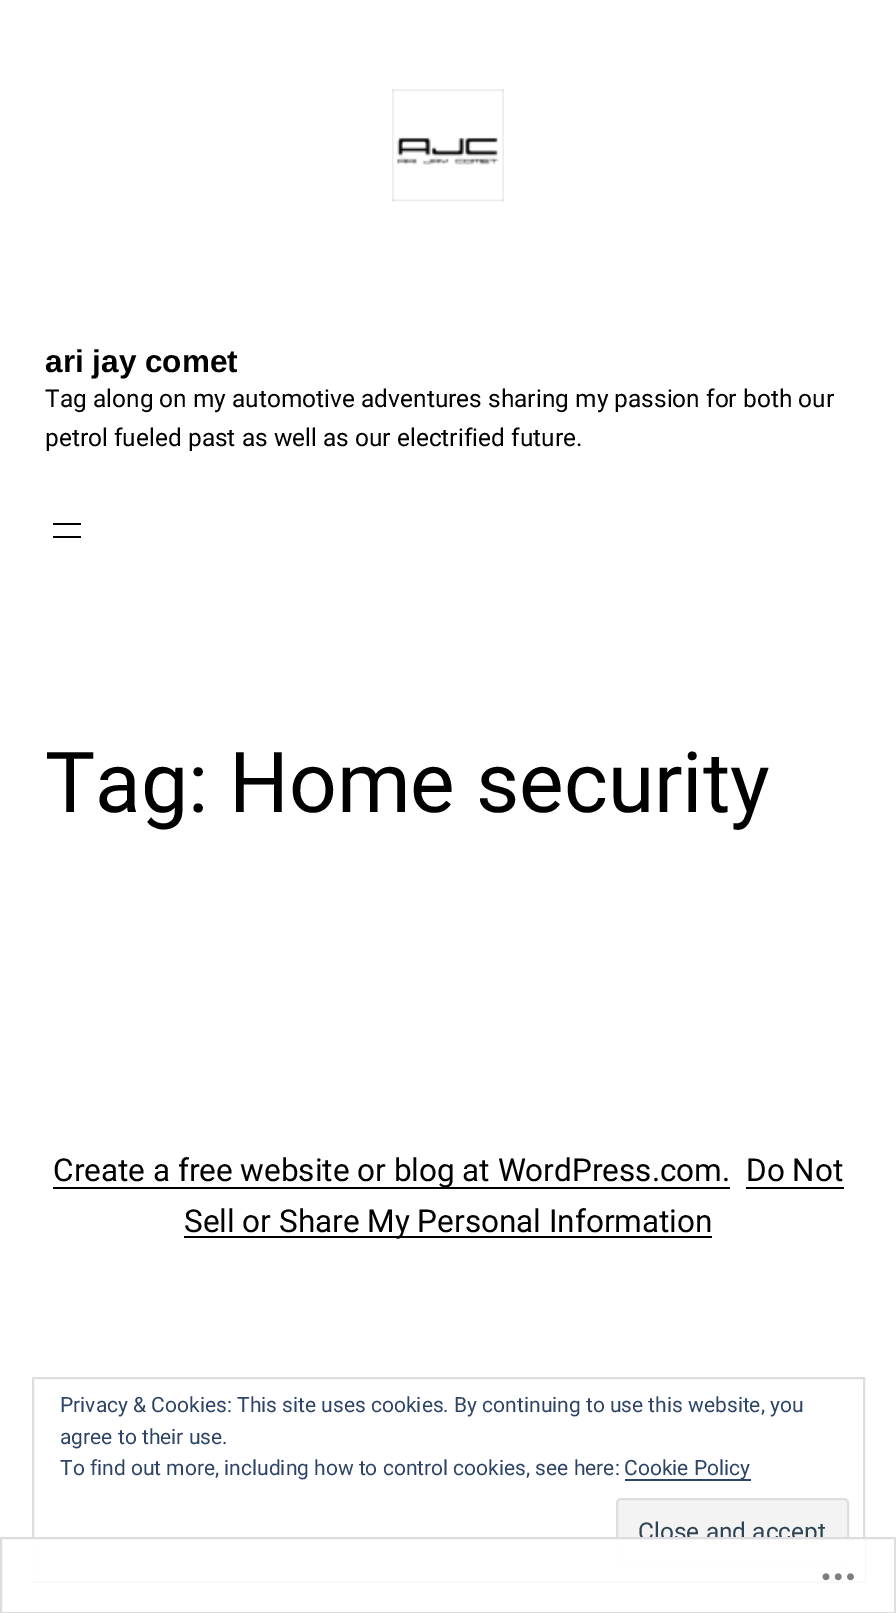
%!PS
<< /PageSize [896 1613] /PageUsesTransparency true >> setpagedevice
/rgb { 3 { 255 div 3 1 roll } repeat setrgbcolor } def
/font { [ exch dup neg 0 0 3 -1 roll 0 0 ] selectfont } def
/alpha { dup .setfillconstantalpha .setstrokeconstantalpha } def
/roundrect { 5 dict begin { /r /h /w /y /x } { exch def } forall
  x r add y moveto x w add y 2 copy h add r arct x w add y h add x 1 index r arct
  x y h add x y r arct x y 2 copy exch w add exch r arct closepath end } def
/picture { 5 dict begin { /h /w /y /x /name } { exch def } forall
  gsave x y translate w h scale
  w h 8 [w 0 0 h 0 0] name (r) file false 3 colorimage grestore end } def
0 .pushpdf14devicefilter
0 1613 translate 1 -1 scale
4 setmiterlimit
255 255 255 rgb
0 0 896 1613 rectfill
(img/1.rgb) 392 89 112 113 picture
[
  [53 523 28 2 0 0 0]
  [53 536 28 2 0 0 0]
  [53 1187 677 2 0 0 0]
  [746 1187 98 2 0 0 0]
  [184 1236 528 2 0 0 0]
] { aload pop rgb rectfill } forall
222 222 222 rgb
2 setlinewidth
33 1378 831 203 rectstroke
46 68 103 rgb
625 1479 126 2 rectfill
243 243 243 rgb
617 1499 231 66 4 roundrect gsave fill grestore
222 222 222 rgb
stroke
/LiberationSans-Bold 31.5 font
0 0 0 rgb
45 372 moveto (ari jay comet) show
/Roboto-Regular 24.5 font
45 407 moveto (Tag along on my automotive adventures sharing my passion for both our) show
45 446 moveto (petrol fueled past as well as our electrified future.) show
/Roboto-Regular 84 font
45 812 moveto (Tag: Home security) show
/Roboto-Regular 31.5 font
[
  [(Create a free website or blog at WordPress.com.) 53 1181]
  [(Do Not) 746 1181]
  [(Sell or Share My Personal Information) 184 1232]
] { aload pop moveto show } forall
/Roboto-Regular 21 font
46 68 103 rgb
[
  [(Privacy & Cookies: This site uses cookies. By continuing to use this website, you) 60 1412]
  [(agree to their use.) 60 1444]
  [(To find out more, including how to control cookies, see here:) 60 1475]
  [(Cookie Policy) 624 1475]
] { aload pop moveto show } forall
/Roboto-Regular 24.5 font
46 68 83 rgb
638 1540 moveto (Close and accept) show
0.98 alpha
255 255 255 rgb
32 1537 833 45 rectfill
220 220 222 rgb
1 1538 894 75 rectstroke
1 alpha
(img/2.rgb) 822 1573 32 8 picture
.poppdf14devicefilter showpage
